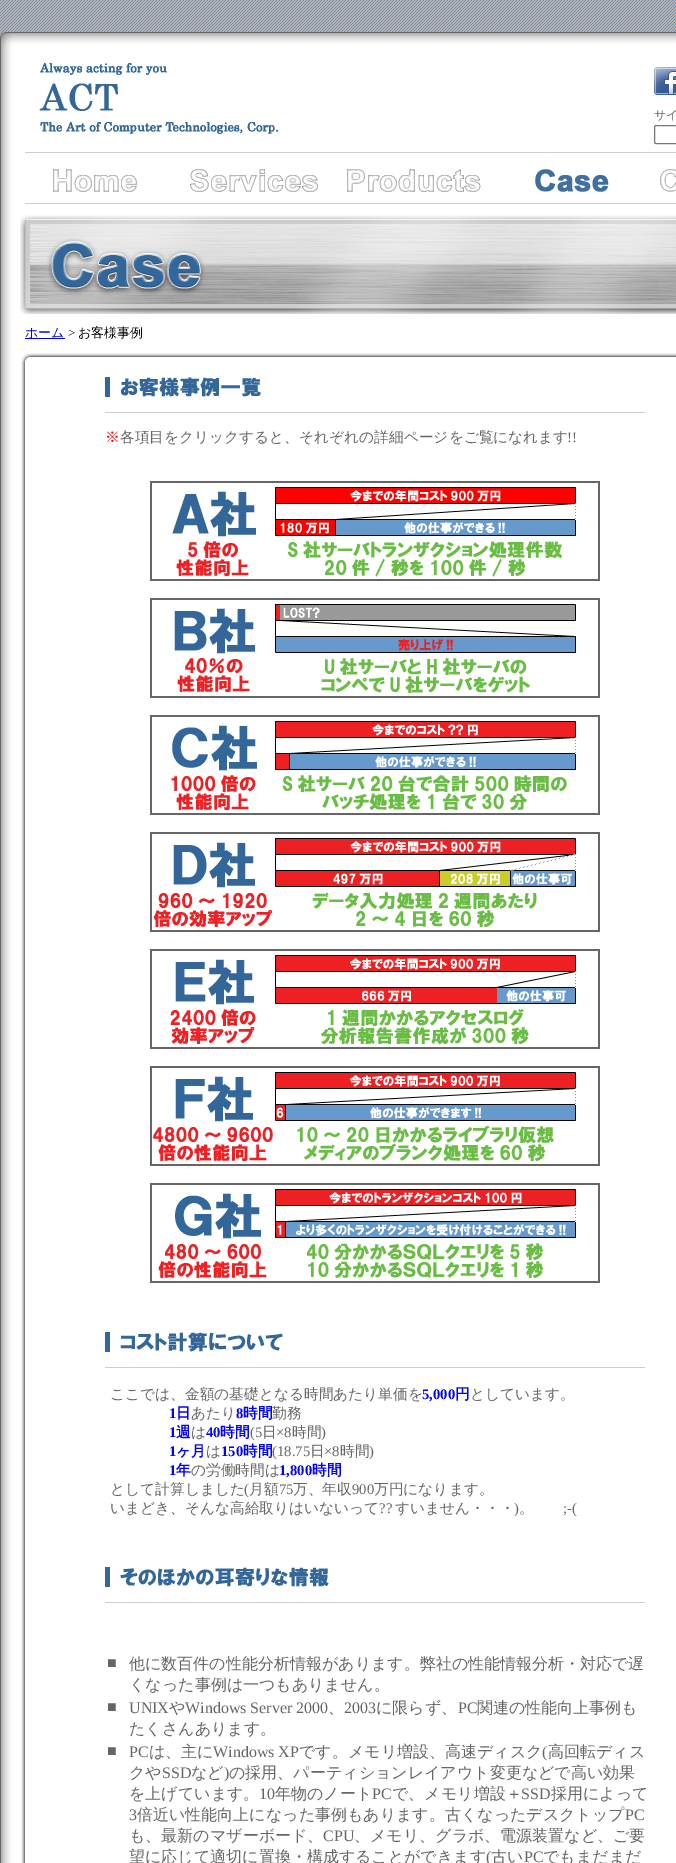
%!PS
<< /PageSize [676 1863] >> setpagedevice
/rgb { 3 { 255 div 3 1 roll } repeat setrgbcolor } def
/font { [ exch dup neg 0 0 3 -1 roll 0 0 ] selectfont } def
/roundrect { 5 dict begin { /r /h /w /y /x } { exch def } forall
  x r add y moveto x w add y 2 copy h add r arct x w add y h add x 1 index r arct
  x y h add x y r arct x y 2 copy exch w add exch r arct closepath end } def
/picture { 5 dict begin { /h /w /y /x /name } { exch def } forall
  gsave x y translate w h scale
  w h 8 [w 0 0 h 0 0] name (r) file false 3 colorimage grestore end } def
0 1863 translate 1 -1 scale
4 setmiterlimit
255 255 255 rgb
0 0 676 1863 rectfill
(img/1.rgb) 0 0 676 37 picture
(img/2.rgb) 0 32 676 15 picture
(img/3.rgb) 0 47 676 1816 picture
(img/4.rgb) 39 63 239 71 picture
(img/5.rgb) 654 67 22 28 picture
118 118 118 rgb
654.5 125.5 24 18 1.5 roundrect stroke
204 204 204 rgb
25 152 651 1 rectfill
(img/6.rgb) 53 169 84 23 picture
(img/7.rgb) 190 169 128 23 picture
(img/8.rgb) 347 169 134 23 picture
(img/9.rgb) 535 169 74 23 picture
(img/10.rgb) 660 169 16 23 picture
25 203 651 1 rectfill
(img/11.rgb) 20 215 656 99 picture
0 0 238 rgb
25 338 40 1 rectfill
(img/12.rgb) 21 353 655 9 picture
(img/13.rgb) 21 362 4 1501 picture
(img/14.rgb) 105 377 156 20 picture
204 204 204 rgb
105 412 540 1 rectfill
(img/15.rgb) 150 481 450 100 picture
(img/16.rgb) 150 598 450 100 picture
(img/17.rgb) 150 715 450 100 picture
(img/18.rgb) 150 832 450 100 picture
(img/19.rgb) 150 949 450 100 picture
(img/20.rgb) 150 1066 450 100 picture
(img/21.rgb) 150 1183 450 100 picture
(img/22.rgb) 105 1332 178 20 picture
105 1367 540 1 rectfill
(img/23.rgb) 105 1567 224 20 picture
105 1602 540 1 rectfill
/WenQuanYiZenHei-Medium 12 font
101 101 101 rgb
654 119 moveto (サイ) show
/WenQuanYiZenHei-Medium 13 font
0 0 238 rgb
25 337 moveto (ホーム) show
/LiberationSerif-Regular 13 font
0 0 0 rgb
68 337 moveto (>) show
/WenQuanYiZenHei-Medium 13 font
78 337 moveto (お客様事例) show
/WenQuanYiZenHei-Medium 14.7 font
255 0 0 rgb
105 442 moveto (※) show
101 101 101 rgb
120 442 moveto (各項目をクリックすると、それぞれの詳細ページをご覧になれます) show
/LiberationSerif-Regular 14.7 font
567 442 moveto (!!) show
/WenQuanYiZenHei-Medium 14.7 font
110 1399 moveto (ここでは、金額の基礎となる時間あたり単価を) show
/LiberationSerif-Bold 14.7 font
0 0 255 rgb
422 1399 moveto (5,000) show
/WenQuanYiZenHei-Bold 14.7 font
455 1399 moveto (円) show
/WenQuanYiZenHei-Medium 14.7 font
101 101 101 rgb
470 1399 moveto (としています。) show
/LiberationSerif-Bold 14.7 font
0 0 255 rgb
169 1418 moveto (1) show
/WenQuanYiZenHei-Bold 14.7 font
176 1418 moveto (日) show
/WenQuanYiZenHei-Medium 14.7 font
101 101 101 rgb
191 1418 moveto (あたり) show
/LiberationSerif-Bold 14.7 font
0 0 255 rgb
236 1418 moveto (8) show
/WenQuanYiZenHei-Bold 14.7 font
243 1418 moveto (時間) show
/WenQuanYiZenHei-Medium 14.7 font
101 101 101 rgb
272 1418 moveto (勤務) show
/LiberationSerif-Bold 14.7 font
0 0 255 rgb
169 1437 moveto (1) show
/WenQuanYiZenHei-Bold 14.7 font
176 1437 moveto (週) show
/WenQuanYiZenHei-Medium 14.7 font
101 101 101 rgb
191 1437 moveto (は) show
/LiberationSerif-Bold 14.7 font
0 0 255 rgb
206 1437 moveto (40) show
/WenQuanYiZenHei-Bold 14.7 font
220 1437 moveto (時間) show
/LiberationSerif-Regular 14.7 font
101 101 101 rgb
250 1437 moveto (\(5) show
/WenQuanYiZenHei-Medium 14.7 font
262 1437 moveto (日) show
/LiberationSerif-Regular 14.7 font
276 1437 moveto (×8) show
/WenQuanYiZenHei-Medium 14.7 font
292 1437 moveto (時間) show
/LiberationSerif-Regular 14.7 font
321 1437 moveto (\)) show
/LiberationSerif-Bold 14.7 font
0 0 255 rgb
169 1456 moveto (1) show
/WenQuanYiZenHei-Bold 14.7 font
176 1456 moveto (ヶ月) show
/WenQuanYiZenHei-Medium 14.7 font
101 101 101 rgb
206 1456 moveto (は) show
/LiberationSerif-Bold 14.7 font
0 0 255 rgb
221 1456 moveto (150) show
/WenQuanYiZenHei-Bold 14.7 font
243 1456 moveto (時間) show
/LiberationSerif-Regular 14.7 font
101 101 101 rgb
272 1456 moveto (\(18.75) show
/WenQuanYiZenHei-Medium 14.7 font
310 1456 moveto (日) show
/LiberationSerif-Regular 14.7 font
324 1456 moveto (×8) show
/WenQuanYiZenHei-Medium 14.7 font
340 1456 moveto (時間) show
/LiberationSerif-Regular 14.7 font
369 1456 moveto (\)) show
/LiberationSerif-Bold 14.7 font
0 0 255 rgb
169 1475 moveto (1) show
/WenQuanYiZenHei-Bold 14.7 font
176 1475 moveto (年) show
/WenQuanYiZenHei-Medium 14.7 font
101 101 101 rgb
191 1475 moveto (の労働時間は) show
/LiberationSerif-Bold 14.7 font
0 0 255 rgb
279 1475 moveto (1,800) show
/WenQuanYiZenHei-Bold 14.7 font
312 1475 moveto (時間) show
/WenQuanYiZenHei-Medium 14.7 font
101 101 101 rgb
110 1494 moveto (として計算しました) show
/LiberationSerif-Regular 14.7 font
244 1494 moveto (\() show
/WenQuanYiZenHei-Medium 14.7 font
249 1494 moveto (月額) show
/LiberationSerif-Regular 14.7 font
279 1494 moveto (75) show
/WenQuanYiZenHei-Medium 14.7 font
293 1494 moveto (万、年収) show
/LiberationSerif-Regular 14.7 font
352 1494 moveto (900) show
/WenQuanYiZenHei-Medium 14.7 font
374 1494 moveto (万円になります。) show
110 1513 moveto (いまどき、そんな高給取りはいないって) show
/LiberationSerif-Regular 14.7 font
379 1513 moveto (??) show
/WenQuanYiZenHei-Medium 14.7 font
395 1513 moveto (すいません・・・) show
/LiberationSerif-Regular 14.7 font
514 1513 moveto (\)) show
/WenQuanYiZenHei-Medium 14.7 font
519 1513 moveto (。) show
/LiberationSerif-Regular 14.7 font
563 1513 moveto (;-\() show
/LiberationSerif-Regular 16 font
107 1668 moveto (■) show
/WenQuanYiZenHei-Medium 16 font
129 1669 moveto (他に数百件の性能分析情報があります。弊社の性能情報分析・対応で遅) show
129 1690 moveto (くなった事例は一つもありません。) show
/LiberationSerif-Regular 16 font
107 1712 moveto (■) show
129 1713 moveto (UNIX) show
/WenQuanYiZenHei-Medium 16 font
169 1713 moveto (や) show
/LiberationSerif-Regular 16 font
185 1713 moveto (Windows Server 2000) show
/WenQuanYiZenHei-Medium 16 font
328 1713 moveto (、) show
/LiberationSerif-Regular 16 font
344 1713 moveto (2003) show
/WenQuanYiZenHei-Medium 16 font
376 1713 moveto (に限らず、) show
/LiberationSerif-Regular 16 font
458 1713 moveto (PC) show
/WenQuanYiZenHei-Medium 16 font
477 1713 moveto (関連の性能向上事例も) show
129 1734 moveto (たくさんあります。) show
/LiberationSerif-Regular 16 font
107 1756 moveto (■) show
129 1757 moveto (PC) show
/WenQuanYiZenHei-Medium 16 font
149 1757 moveto (は、主に) show
/LiberationSerif-Regular 16 font
213 1757 moveto (Windows XP) show
/WenQuanYiZenHei-Medium 16 font
299 1757 moveto (です。メモリ増設、高速ディスク) show
/LiberationSerif-Regular 16 font
542 1757 moveto (\() show
/WenQuanYiZenHei-Medium 16 font
548 1757 moveto (高回転ディス) show
129 1778 moveto (クや) show
/LiberationSerif-Regular 16 font
162 1778 moveto (SSD) show
/WenQuanYiZenHei-Medium 16 font
191 1778 moveto (など) show
/LiberationSerif-Regular 16 font
224 1778 moveto (\)) show
/WenQuanYiZenHei-Medium 16 font
229 1778 moveto (の採用、パーティションレイアウト変更などで高い効果) show
129 1799 moveto (を上げています。) show
/LiberationSerif-Regular 16 font
259 1799 moveto (10) show
/WenQuanYiZenHei-Medium 16 font
275 1799 moveto (年物のノート) show
/LiberationSerif-Regular 16 font
372 1799 moveto (PC) show
/WenQuanYiZenHei-Medium 16 font
392 1799 moveto (で、メモリ増設＋) show
/LiberationSerif-Regular 16 font
521 1799 moveto (SSD) show
/WenQuanYiZenHei-Medium 16 font
551 1799 moveto (採用によって) show
/LiberationSerif-Regular 16 font
129 1820 moveto (3) show
/WenQuanYiZenHei-Medium 16 font
137 1820 moveto (倍近い性能向上になった事例もあります。古くなったデスクトップ) show
/LiberationSerif-Regular 16 font
625 1820 moveto (PC) show
/WenQuanYiZenHei-Medium 16 font
129 1841 moveto (も、最新のマザーボード、) show
/LiberationSerif-Regular 16 font
323 1841 moveto (CPU) show
/WenQuanYiZenHei-Medium 16 font
354 1841 moveto (、メモリ、グラボ、電源装置など、ご要) show
129 1862 moveto (望に応じて適切に置換・構成することができます) show
/LiberationSerif-Regular 16 font
486 1862 moveto (\() show
/WenQuanYiZenHei-Medium 16 font
491 1862 moveto (古い) show
/LiberationSerif-Regular 16 font
524 1862 moveto (PC) show
/WenQuanYiZenHei-Medium 16 font
543 1862 moveto (でもまだまだ) show
showpage
